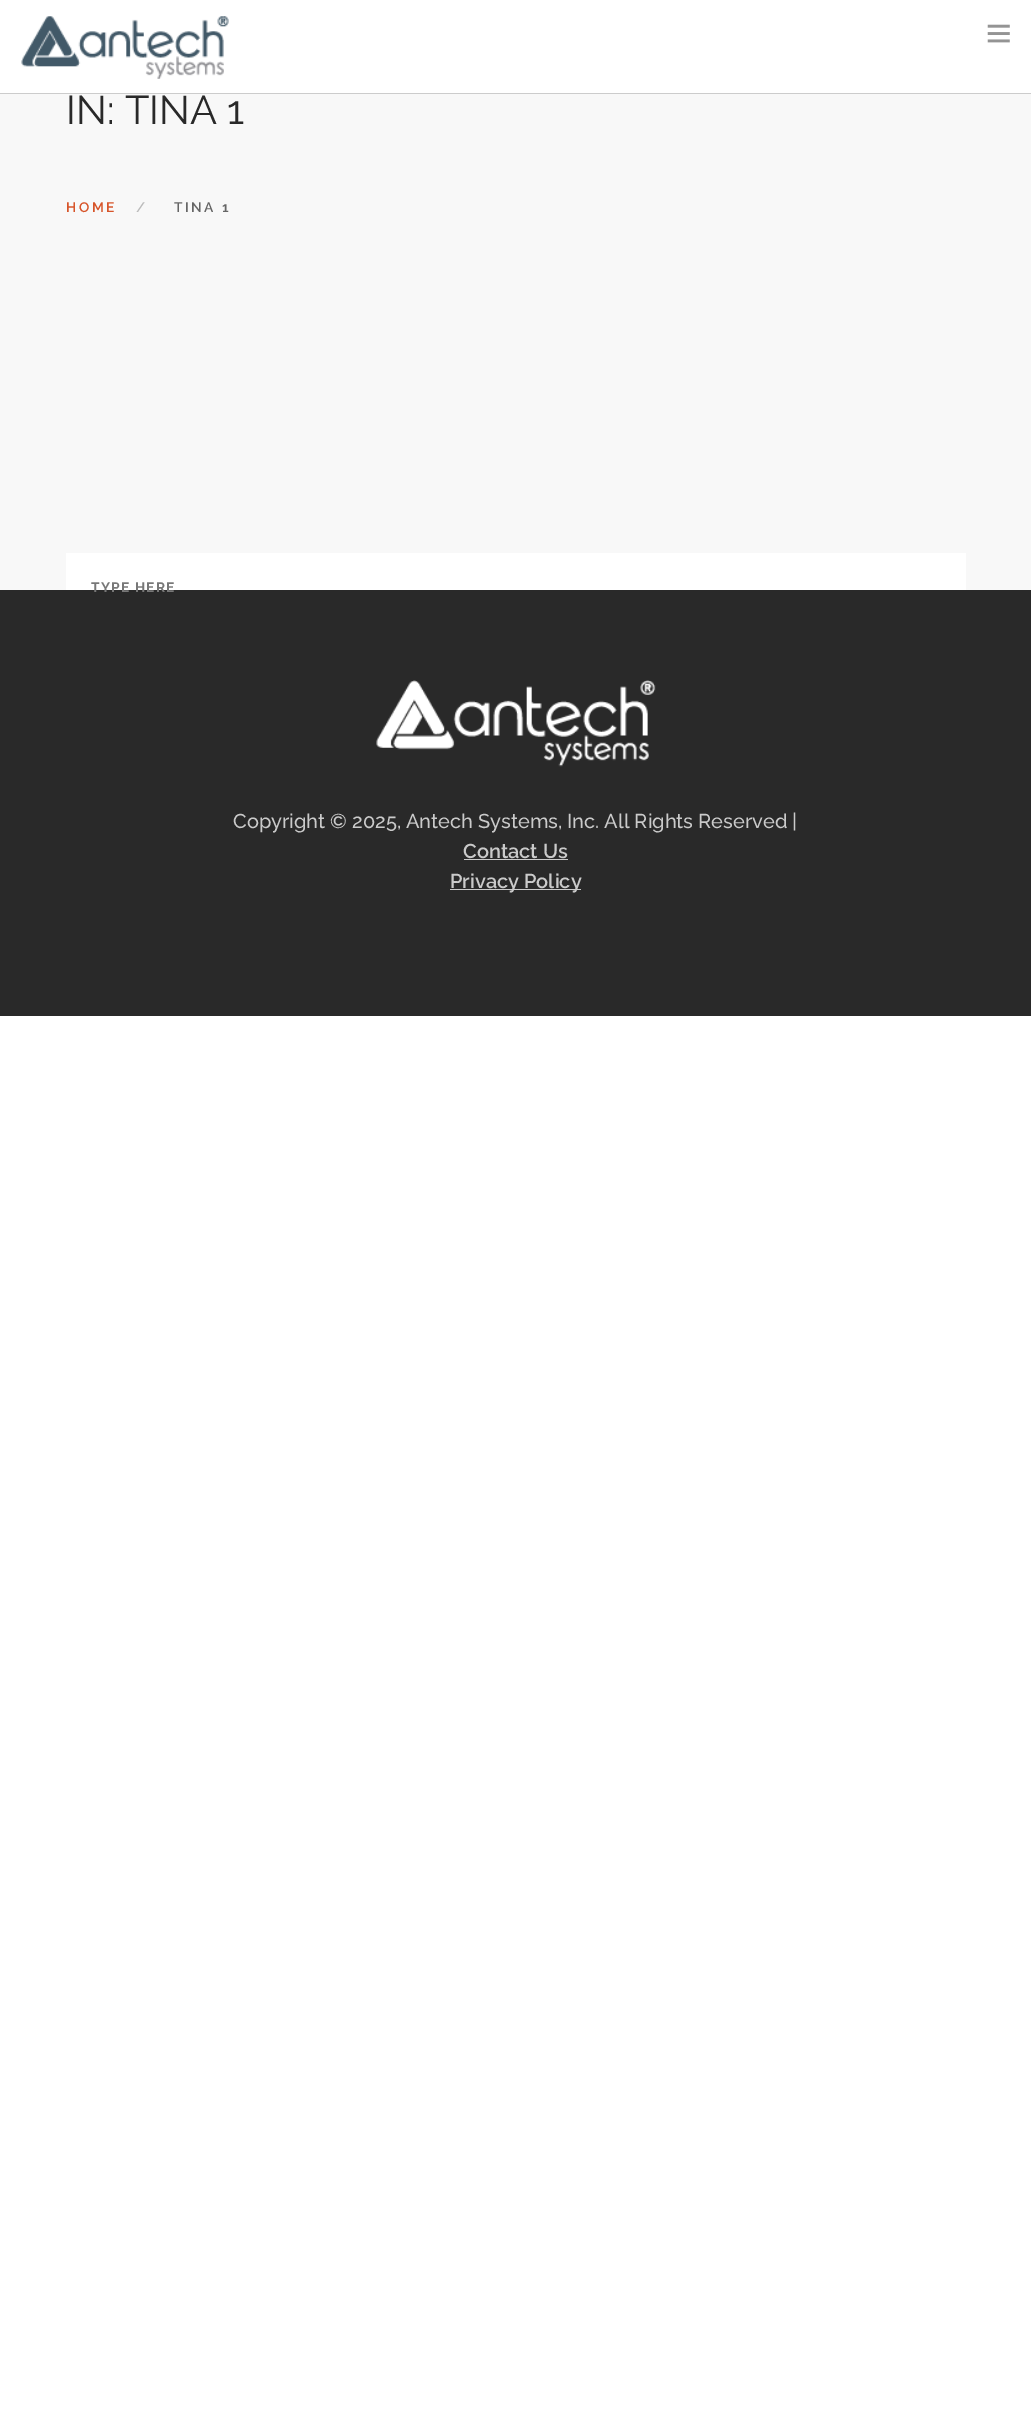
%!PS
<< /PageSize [1031 2415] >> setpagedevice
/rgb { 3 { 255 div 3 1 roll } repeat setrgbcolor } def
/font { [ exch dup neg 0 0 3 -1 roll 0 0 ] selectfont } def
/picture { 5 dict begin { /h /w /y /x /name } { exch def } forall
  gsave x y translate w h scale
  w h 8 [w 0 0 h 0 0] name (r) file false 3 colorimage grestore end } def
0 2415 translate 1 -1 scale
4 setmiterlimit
255 255 255 rgb
0 0 1031 2415 rectfill
204 204 204 rgb
0 93 1031 1 rectfill
(img/1.rgb) 21 16 208 63 picture
(img/2.rgb) 987 24 23 19 picture
[
  [0 94 1031 496 248 248 248]
  [66 553 900 37 255 255 255]
  [0 590 1031 426 41 41 41]
] { aload pop rgb rectfill } forall
(img/3.rgb) 376 680 280 87 picture
202 202 202 rgb
464 859 104 1 rectfill
450 889 131 1 rectfill
/Raleway-Regular 40 font
41 41 41 rgb
66 124 moveto (IN: TINA 1) show
/Raleway-SemiBold 13.75 font
215 84 41 rgb
66 212 moveto 2.5 0 (HOME) ashow
187 187 187 rgb
136 212 moveto 2.5 0 (/) ashow
102 102 102 rgb
174 212 moveto 2.5 0 (TINA 1) ashow
/Raleway-Bold 13.75 font
119 119 119 rgb
91 592 moveto 1.25 0 (TYPE HERE) ashow
/Raleway-Medium 20 font
202 202 202 rgb
233 828 moveto (Copyright © 2025, Antech Systems, Inc. All Rights Reserved |) show
/Raleway-SemiBold 20 font
463 858 moveto (Contact Us) show
450 888 moveto (Privacy Policy) show
showpage
